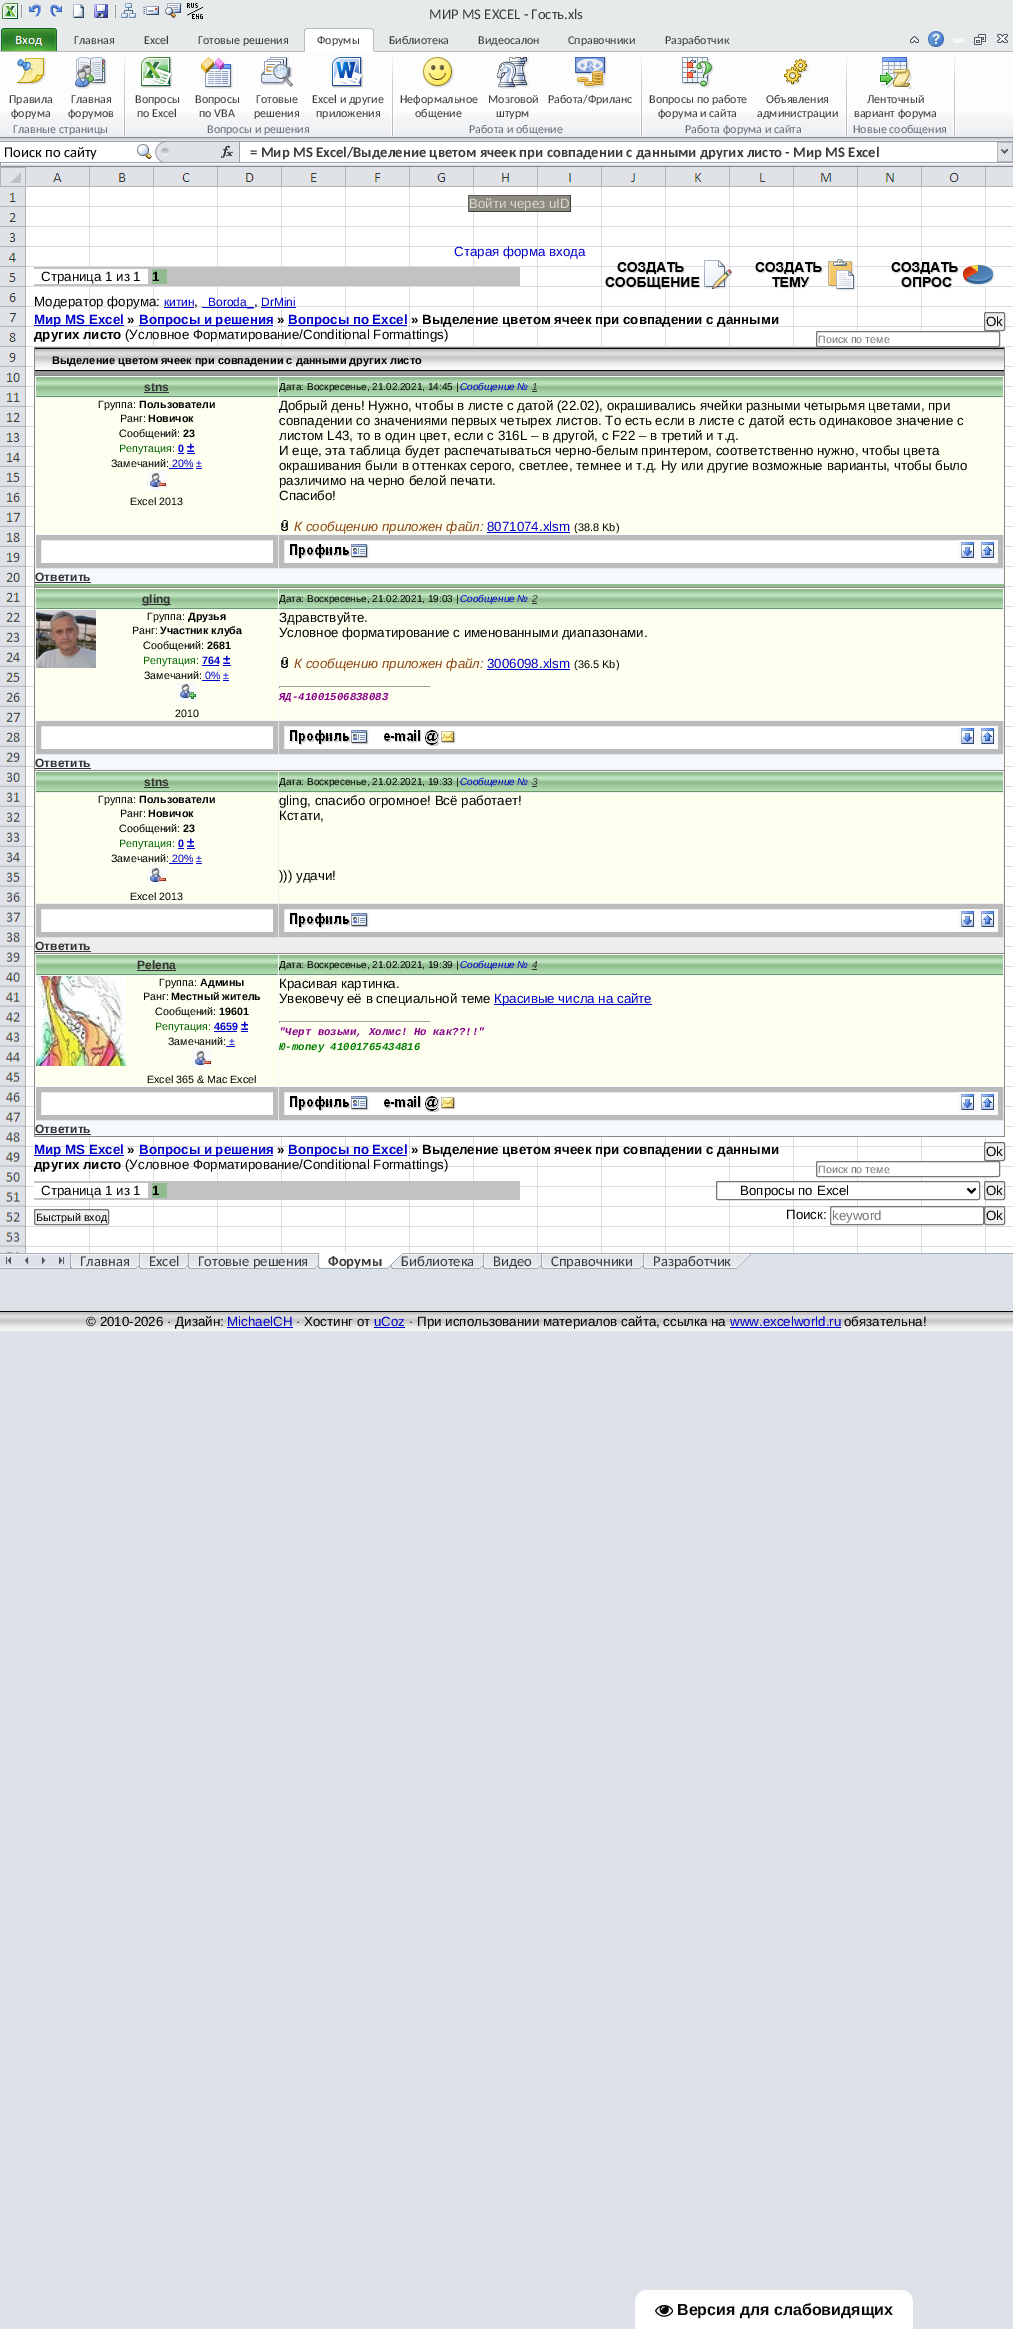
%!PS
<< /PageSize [1013 2329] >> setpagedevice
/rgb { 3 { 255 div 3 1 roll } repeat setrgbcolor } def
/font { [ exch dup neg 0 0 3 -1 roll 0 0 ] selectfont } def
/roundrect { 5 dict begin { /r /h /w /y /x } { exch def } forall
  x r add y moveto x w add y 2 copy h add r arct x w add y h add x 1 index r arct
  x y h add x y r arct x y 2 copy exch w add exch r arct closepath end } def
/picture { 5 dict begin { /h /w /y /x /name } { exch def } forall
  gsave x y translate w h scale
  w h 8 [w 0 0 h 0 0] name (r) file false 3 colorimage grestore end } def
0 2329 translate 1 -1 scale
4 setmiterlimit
220 226 232 rgb
0 0 1013 2329 rectfill
230 234 235 rgb
0 0 1013 51 rectfill
(img/1.rgb) 2 3 16 16 picture
(img/2.rgb) 20 4 3 15 picture
(img/3.rgb) 29 4 12 13 picture
(img/4.rgb) 50 4 12 13 picture
(img/5.rgb) 73 4 11 14 picture
(img/6.rgb) 94 4 14 14 picture
(img/2.rgb) 114 4 3 15 picture
(img/7.rgb) 121 3 15 15 picture
(img/8.rgb) 143 6 16 9 picture
(img/9.rgb) 165 3 16 15 picture
(img/10.rgb) 187 3 16 16 picture
182 186 191 rgb
0 51 1013 1 rectfill
(img/11.rgb) 1 28 56 23 picture
255 255 255 rgb
307 28 moveto 371 28 lineto 372.5 28 374 29.5 374 31 curveto 374 52 lineto 304 52 lineto 304 31 lineto 304 29.5 305.5 28 307 28 curveto closepath fill
182 186 191 rgb
307 28 moveto 305 29 lineto 306 30 lineto 307 29 lineto 371 29 lineto 372 30 lineto 373 29 lineto 371 28 lineto closepath fill
374 52 moveto 374 31 lineto 374 30 374 29 373 29 curveto 372.5 29.5 lineto 373 30 373 30.5 373 31 curveto 373 51 lineto closepath fill
255 255 255 rgb
374 52 moveto 373 51 lineto 305 51 lineto 304 52 lineto closepath fill
182 186 191 rgb
304 52 moveto 305 51 lineto 305 31 lineto 305 30.5 305 30 305.5 29.5 curveto 305 29 lineto 304 29 304 30 304 31 curveto closepath fill
(img/12.rgb) 910 36 9 7 picture
(img/13.rgb) 928 31 16 16 picture
246 246 247 rgb
953 38 11 5 rectfill
(img/14.rgb) 974 34 12 11 picture
(img/15.rgb) 997 34 11 9 picture
253 253 253 rgb
0 52 1013 61 rectfill
(img/16.rgb) 0 113 1013 29 picture
(img/17.rgb) 123 52 3 84 picture
(img/18.rgb) 17 58 29 27 picture
(img/19.rgb) 75 57 32 32 picture
(img/17.rgb) 391 52 3 84 picture
(img/20.rgb) 141 57 32 31 picture
(img/21.rgb) 201 57 32 32 picture
(img/22.rgb) 261 57 32 30 picture
(img/23.rgb) 332 57 32 31 picture
(img/17.rgb) 640 52 3 84 picture
(img/24.rgb) 423 57 31 31 picture
(img/25.rgb) 497 57 32 32 picture
(img/26.rgb) 575 57 32 32 picture
(img/17.rgb) 845 52 3 84 picture
(img/27.rgb) 682 57 32 31 picture
(img/28.rgb) 784 59 25 27 picture
(img/17.rgb) 953 52 3 84 picture
(img/29.rgb) 880 57 32 32 picture
255 255 255 rgb
0 142 997 20 rectfill
(img/30.rgb) 155 142 85 20 picture
(img/31.rgb) 137 144 15 15 picture
(img/32.rgb) 997 142 16 20 picture
(img/33.rgb) 0 162 1013 25 picture
(img/34.rgb) 0 187 26 1066 picture
(img/35.rgb) 26 187 987 1066 picture
[
  [469 196 101 15 141 138 131]
  [468 195 103 1 97 94 88]
  [570 195 1 17 65 63 59]
  [468 211 103 1 65 63 59]
  [468 195 1 17 97 94 88]
  [34 267 486 19 194 194 194]
  [34 269 114 15 255 255 255]
  [152 269 15 15 144 188 144]
] { aload pop rgb rectfill } forall
(img/36.rgb) 605 260 128 31 picture
(img/37.rgb) 755 259 101 32 picture
(img/38.rgb) 891 262 104 27 picture
[
  [164 307 30 1 0 0 205]
  [202 307 52 1 0 0 205]
  [261 307 35 1 0 0 205]
  [34 325 90 1 0 0 205]
  [139 325 134 1 0 0 205]
  [288 325 119 1 0 0 205]
] { aload pop rgb rectfill } forall
239 239 239 rgb
984.5 312.5 20 18 1.5 roundrect gsave fill grestore
118 118 118 rgb
stroke
255 255 255 rgb
816.5 331.5 183 15 1.5 roundrect gsave fill grestore
118 118 118 rgb
stroke
140 138 130 rgb
34 347 971 790 rectfill
(img/39.rgb) 35 348 969 23 picture
[
  [35 372 969 3 153 153 153]
  [35 376 969 208 245 249 253]
  [35 584 969 3 144 188 144]
  [36 377 242 2 144 188 144]
] { aload pop rgb rectfill } forall
(img/40.rgb) 36 379 242 17 picture
[
  [36 396 242 1 102 153 102]
  [144 392 25 1 51 51 51]
  [279 377 724 2 144 188 144]
] { aload pop rgb rectfill } forall
(img/41.rgb) 279 379 724 17 picture
[
  [279 396 724 1 102 153 102]
  [532 391 5 1 51 51 51]
  [36 398 242 136 255 255 240]
  [178 453 6 1 0 0 205]
  [187 453 8 1 0 0 205]
  [169 468 24 1 0 0 205]
  [196 468 6 1 0 0 205]
] { aload pop rgb rectfill } forall
(img/42.rgb) 147 470 20 20 picture
255 255 240 rgb
279 398 724 136 rectfill
(img/43.rgb) 281 520 7 11 picture
0 0 205 rgb
487 532 83 1 rectfill
255 255 255 rgb
38.5 537.5 moveto 275.5 537.5 lineto 275.5 565.5 lineto 38.5 565.5 lineto closepath gsave fill grestore
187 187 187 rgb
5 setlinewidth
stroke
255 255 255 rgb
281.5 537.5 moveto 1000.5 537.5 lineto 1000.5 565.5 lineto 281.5 565.5 lineto closepath gsave fill grestore
187 187 187 rgb
stroke
(img/44.rgb) 290 544 79 16 picture
(img/45.rgb) 958 540 20 20 picture
(img/46.rgb) 978 540 20 20 picture
[
  [35 582 56 1 51 51 51]
  [35 588 969 182 245 249 253]
  [36 589 242 2 144 188 144]
] { aload pop rgb rectfill } forall
(img/40.rgb) 36 591 242 17 picture
[
  [36 608 242 1 102 153 102]
  [142 604 29 1 51 51 51]
  [279 589 724 2 144 188 144]
] { aload pop rgb rectfill } forall
(img/41.rgb) 279 591 724 17 picture
[
  [279 608 724 1 102 153 102]
  [532 603 5 1 51 51 51]
  [36 610 242 110 255 255 240]
] { aload pop rgb rectfill } forall
(img/47.rgb) 36 610 60 58 picture
[
  [202 665 17 1 0 0 205]
  [223 665 8 1 0 0 205]
  [202 680 18 1 0 0 205]
  [223 680 6 1 0 0 205]
] { aload pop rgb rectfill } forall
(img/48.rgb) 177 682 20 20 picture
255 255 240 rgb
279 610 724 110 rectfill
(img/43.rgb) 281 657 7 11 picture
[
  [487 669 83 1 0 0 205]
  [279 686 152 1 159 159 159]
  [430 686 1 2 238 238 238]
  [279 686 1 2 159 159 159]
] { aload pop rgb rectfill } forall
255 255 255 rgb
38.5 723.5 moveto 275.5 723.5 lineto 275.5 751.5 lineto 38.5 751.5 lineto closepath gsave fill grestore
187 187 187 rgb
stroke
255 255 255 rgb
281.5 723.5 moveto 1000.5 723.5 lineto 1000.5 751.5 lineto 281.5 751.5 lineto closepath gsave fill grestore
187 187 187 rgb
stroke
(img/44.rgb) 290 730 79 16 picture
(img/49.rgb) 384 730 72 16 picture
(img/45.rgb) 958 726 20 20 picture
(img/46.rgb) 978 726 20 20 picture
[
  [35 768 56 1 51 51 51]
  [35 771 969 182 238 238 238]
  [36 772 242 2 144 188 144]
] { aload pop rgb rectfill } forall
(img/40.rgb) 36 774 242 17 picture
[
  [36 791 242 1 102 153 102]
  [144 787 25 1 51 51 51]
  [279 772 724 2 144 188 144]
] { aload pop rgb rectfill } forall
(img/41.rgb) 279 774 724 17 picture
[
  [279 791 724 1 102 153 102]
  [532 786 5 1 51 51 51]
  [36 793 242 110 255 255 240]
  [178 848 6 1 0 0 205]
  [187 848 8 1 0 0 205]
  [169 863 24 1 0 0 205]
  [196 863 6 1 0 0 205]
] { aload pop rgb rectfill } forall
(img/42.rgb) 147 865 20 20 picture
255 255 240 rgb
279 793 724 110 rectfill
255 255 255 rgb
38.5 906.5 moveto 275.5 906.5 lineto 275.5 934.5 lineto 38.5 934.5 lineto closepath gsave fill grestore
187 187 187 rgb
stroke
255 255 255 rgb
281.5 906.5 moveto 1000.5 906.5 lineto 1000.5 934.5 lineto 281.5 934.5 lineto closepath gsave fill grestore
187 187 187 rgb
stroke
(img/44.rgb) 290 913 79 16 picture
(img/45.rgb) 958 909 20 20 picture
(img/46.rgb) 978 909 20 20 picture
[
  [35 951 56 1 51 51 51]
  [35 954 969 182 245 249 253]
  [36 955 242 2 144 188 144]
] { aload pop rgb rectfill } forall
(img/40.rgb) 36 957 242 17 picture
[
  [36 974 242 1 102 153 102]
  [137 970 39 1 51 51 51]
  [279 955 724 2 144 188 144]
] { aload pop rgb rectfill } forall
(img/41.rgb) 279 957 724 17 picture
[
  [279 974 724 1 102 153 102]
  [532 969 5 1 51 51 51]
  [36 976 242 110 255 255 240]
] { aload pop rgb rectfill } forall
(img/50.rgb) 36 976 90 90 picture
[
  [214 1031 23 1 0 0 205]
  [241 1031 7 1 0 0 205]
  [226 1046 9 1 0 0 205]
] { aload pop rgb rectfill } forall
(img/42.rgb) 192 1048 20 20 picture
[
  [279 976 724 110 255 255 240]
  [494 1004 158 1 0 0 205]
  [279 1021 152 1 159 159 159]
  [430 1021 1 2 238 238 238]
  [279 1021 1 2 159 159 159]
] { aload pop rgb rectfill } forall
255 255 255 rgb
38.5 1089.5 moveto 275.5 1089.5 lineto 275.5 1117.5 lineto 38.5 1117.5 lineto closepath gsave fill grestore
187 187 187 rgb
stroke
255 255 255 rgb
281.5 1089.5 moveto 1000.5 1089.5 lineto 1000.5 1117.5 lineto 281.5 1117.5 lineto closepath gsave fill grestore
187 187 187 rgb
stroke
(img/44.rgb) 290 1096 79 16 picture
(img/49.rgb) 384 1096 72 16 picture
(img/45.rgb) 958 1092 20 20 picture
(img/46.rgb) 978 1092 20 20 picture
[
  [35 1134 56 1 51 51 51]
  [34 1155 90 1 0 0 205]
  [139 1155 134 1 0 0 205]
  [288 1155 119 1 0 0 205]
] { aload pop rgb rectfill } forall
239 239 239 rgb
984.5 1142.5 20 18 1.5 roundrect gsave fill grestore
118 118 118 rgb
1 setlinewidth
stroke
255 255 255 rgb
816.5 1161.5 183 15 1.5 roundrect gsave fill grestore
118 118 118 rgb
stroke
[
  [34 1181 486 19 194 194 194]
  [34 1183 114 15 255 255 255]
  [152 1183 15 15 144 188 144]
] { aload pop rgb rectfill } forall
255 255 255 rgb
716.5 1181.5 263 18 1.5 roundrect gsave fill grestore
118 118 118 rgb
stroke
0 0 0 rgb
2 setlinewidth
967.5 1188.5 moveto 971.5 1192.5 lineto 975.5 1188.5 lineto stroke
239 239 239 rgb
984.5 1181.5 20 18 1.5 roundrect gsave fill grestore
118 118 118 rgb
1 setlinewidth
stroke
239 239 239 rgb
34.5 1209.5 74 15 1.5 roundrect gsave fill grestore
118 118 118 rgb
stroke
255 255 255 rgb
830.5 1206.5 153 18 1.5 roundrect gsave fill grestore
118 118 118 rgb
stroke
239 239 239 rgb
984.5 1206.5 20 18 1.5 roundrect gsave fill grestore
118 118 118 rgb
stroke
(img/51.rgb) 0 1254 72 15 picture
(img/52.rgb) 6 1257 5 7 picture
(img/53.rgb) 24 1257 5 7 picture
(img/54.rgb) 41 1257 5 7 picture
(img/55.rgb) 59 1257 5 7 picture
166 172 179 rgb
0 1253 1013 1 rectfill
(img/56.rgb) 70 1254 65 15 picture
(img/57.rgb) 135 1254 5 15 picture
(img/58.rgb) 139 1254 45 15 picture
(img/59.rgb) 184 1254 6 15 picture
(img/60.rgb) 188 1254 126 15 picture
(img/61.rgb) 314 1254 4 15 picture
(img/62.rgb) 318 1253 15 16 picture
(img/64.rgb) 391 1254 88 15 picture
(img/57.rgb) 479 1254 5 15 picture
(img/65.rgb) 483 1254 54 15 picture
(img/59.rgb) 537 1254 6 15 picture
(img/66.rgb) 541 1254 98 15 picture
(img/57.rgb) 639 1254 5 15 picture
(img/67.rgb) 643 1254 93 15 picture
(img/68.rgb) 736 1254 15 15 picture
(img/69.rgb) 0 1311 1013 20 picture
[
  [227 1327 66 1 0 0 205]
  [374 1327 31 1 0 0 205]
  [730 1327 111 1 0 0 205]
] { aload pop rgb rectfill } forall
255 255 255 rgb
647 2290 moveto 901 2290 lineto 907.5 2290 913 2295.5 913 2302 curveto 913 2329 lineto 635 2329 lineto 635 2302 lineto 635 2295.5 640.5 2290 647 2290 curveto closepath fill
(img/70.rgb) 655 2304 18 13 picture
/Carlito-Regular 14.65 font
59 59 59 rgb
429 19 moveto (МИР MS EXCEL - Гость.xls) show
/Carlito-Regular 12 font
[
  [(Главная) 74 44]
  [(Excel) 144 44]
  [(Готовые решения) 198 44]
  [(Форумы) 317 44]
  [(Библиотека) 389 44]
  [(Видеосалон) 478 44]
  [(Справочники) 568 44]
  [(Разработчик) 665 44]
  [(Правила) 9 103]
  [(форума) 11 117]
  [(Главная) 71 103]
  [(форумов) 68 117]
] { aload pop moveto show } forall
102 109 124 rgb
13 133 moveto (Главные страницы) show
59 59 59 rgb
[
  [(Вопросы) 135 103]
  [(по Excel) 137 117]
  [(Вопросы) 195 103]
  [(по VBA) 199 117]
  [(Готовые) 256 103]
  [(решения) 254 117]
  [(Excel и другие) 312 103]
  [(приложения) 316 117]
] { aload pop moveto show } forall
102 109 124 rgb
207 133 moveto (Вопросы и решения) show
59 59 59 rgb
[
  [(Неформальное) 400 103]
  [(общение) 415 117]
  [(Мозговой) 488 103]
  [(штурм) 496 117]
  [(Работа/Фриланс) 548 103]
] { aload pop moveto show } forall
102 109 124 rgb
469 133 moveto (Работа и общение) show
59 59 59 rgb
[
  [(Вопросы по работе) 649 103]
  [(форума и сайта) 658 117]
  [(Объявления) 766 103]
  [(администрации) 757 117]
] { aload pop moveto show } forall
102 109 124 rgb
685 133 moveto (Работа форума и сайта) show
59 59 59 rgb
867 103 moveto (Ленточный) show
854 117 moveto (вариант форума) show
102 109 124 rgb
853 133 moveto (Новые сообщения) show
/Carlito-Regular 14.65 font
0 0 0 rgb
4 157 moveto (Поиск по сайту) show
/Carlito-Bold 14.65 font
59 59 59 rgb
250 157 moveto (= Мир MS Excel/Выделение цветом ячеек при совпадении с данными других листо - Мир MS Excel) show
/LiberationSans-Regular 13.33 font
218 215 204 rgb
469 208 moveto (Войти через uID) show
0 0 205 rgb
454 256 moveto (Старая форма входа) show
0 0 0 rgb
41 281 moveto (Страница 1 из 1) show
/LiberationSans-Bold 13.33 font
152 281 moveto (1) show
/LiberationSans-Regular 13.33 font
34 306 moveto (Модератор форума:) show
/LiberationSans-Regular 12 font
0 0 205 rgb
164 306 moveto (китин) show
/LiberationSans-Regular 13.33 font
0 0 0 rgb
194 306 moveto (,) show
/LiberationSans-Regular 12 font
0 0 205 rgb
208 306 moveto (Boroda_) show
/LiberationSans-Regular 13.33 font
0 0 0 rgb
254 306 moveto (,) show
/LiberationSans-Regular 12 font
0 0 205 rgb
261 306 moveto (DrMini) show
/LiberationSans-Bold 13.33 font
34 324 moveto (Мир MS Excel) show
0 0 0 rgb
127 324 moveto (») show
0 0 205 rgb
139 324 moveto (Вопросы и решения) show
0 0 0 rgb
277 324 moveto (») show
0 0 205 rgb
288 324 moveto (Вопросы по Excel) show
0 0 0 rgb
411 324 moveto (» Выделение цветом ячеек при совпадении с данными) show
34 339 moveto (других листо) show
/LiberationSans-Regular 13.33 font
125 339 moveto (\(Условное Форматирование/Conditional Formattings\)) show
986 326 moveto (Ok) show
/LiberationSans-Regular 10.7 font
117 117 117 rgb
818 343 moveto (Поиск по теме) show
/LiberationSans-Bold 11 font
0 0 0 rgb
52 364 moveto (Выделение цветом ячеек при совпадении с данными других листо) show
/LiberationSans-Bold 12 font
51 51 51 rgb
144 391 moveto (stns) show
/LiberationSans-Regular 10 font
0 0 0 rgb
279 390 moveto (Дата: Воскресенье, 21.02.2021, 14:45 |) show
/LiberationSans-Italic 10 font
0 0 205 rgb
460 390 moveto (Сообщение №) show
51 51 51 rgb
532 390 moveto (1) show
/LiberationSans-Regular 10.7 font
0 0 0 rgb
98 408 moveto (Группа:) show
/LiberationSans-Bold 10.7 font
139 408 moveto (Пользователи) show
/LiberationSans-Regular 10.7 font
120 422 moveto (Ранг:) show
/LiberationSans-Bold 10.7 font
148 422 moveto (Новичок) show
/LiberationSans-Regular 10.7 font
119 437 moveto (Сообщений:) show
/LiberationSans-Bold 10.7 font
183 437 moveto (23) show
/LiberationSans-Regular 10.7 font
0 100 0 rgb
119 452 moveto (Репутация:) show
/LiberationSans-Bold 10.7 font
0 0 205 rgb
178 452 moveto (0) show
/LiberationSans-Bold 13.33 font
187 452 moveto (±) show
/LiberationSans-Regular 10.7 font
0 0 0 rgb
111 467 moveto (Замечаний:) show
0 0 205 rgb
172 467 moveto (20% ±) show
0 0 0 rgb
130 505 moveto (Excel 2013) show
/LiberationSans-Regular 13.33 font
[
  [(Добрый день! Нужно, чтобы в листе с датой \(22.02\), окрашивались ячейки разными четырьмя цветами, при) 279 410]
  [(совпадении со значениями первых четырех листов. То есть если в листе с датой есть одинаковое значение с) 279 425]
  [(листом L43, то в один цвет, если с 316L – в другой, с F22 – в третий и т.д.) 279 440]
  [(И еще, эта таблица будет распечатываться черно-белым принтером, соответственно нужно, чтобы цвета) 279 455]
  [(окрашивания были в оттенках серого, светлее, темнее и т.д. Ну или другие возможные варианты, чтобы было) 279 470]
  [(различимо на черно белой печати.) 279 485]
  [(Спасибо!) 279 500]
] { aload pop moveto show } forall
/LiberationSans-Italic 13.33 font
139 69 19 rgb
294 531 moveto (К сообщению приложен файл:) show
/LiberationSans-Regular 13.33 font
0 0 205 rgb
487 531 moveto (8071074.xlsm) show
/LiberationSans-Regular 11 font
0 0 0 rgb
574 531 moveto (\(38.8 Kb\)) show
/LiberationSans-Bold 12 font
51 51 51 rgb
35 581 moveto (Ответить) show
142 603 moveto (gling) show
/LiberationSans-Regular 10 font
0 0 0 rgb
279 602 moveto (Дата: Воскресенье, 21.02.2021, 19:03 |) show
/LiberationSans-Italic 10 font
0 0 205 rgb
460 602 moveto (Сообщение №) show
51 51 51 rgb
532 602 moveto (2) show
/LiberationSans-Regular 10.7 font
0 0 0 rgb
147 620 moveto (Группа:) show
/LiberationSans-Bold 10.7 font
188 620 moveto (Друзья) show
/LiberationSans-Regular 10.7 font
132 634 moveto (Ранг:) show
/LiberationSans-Bold 10.7 font
160 634 moveto (Участник клуба) show
/LiberationSans-Regular 10.7 font
143 649 moveto (Сообщений:) show
/LiberationSans-Bold 10.7 font
207 649 moveto (2681) show
/LiberationSans-Regular 10.7 font
0 100 0 rgb
143 664 moveto (Репутация:) show
/LiberationSans-Bold 10.7 font
0 0 205 rgb
202 664 moveto (764) show
/LiberationSans-Bold 13.33 font
223 664 moveto (±) show
/LiberationSans-Regular 10.7 font
0 0 0 rgb
144 679 moveto (Замечаний:) show
0 0 205 rgb
205 679 moveto (0% ±) show
0 0 0 rgb
175 717 moveto (2010) show
/LiberationSans-Regular 13.33 font
279 622 moveto (Здравствуйте.) show
279 637 moveto (Условное форматирование с именованными диапазонами.) show
/LiberationSans-Italic 13.33 font
139 69 19 rgb
294 668 moveto (К сообщению приложен файл:) show
/LiberationSans-Regular 13.33 font
0 0 205 rgb
487 668 moveto (3006098.xlsm) show
/LiberationSans-Regular 11 font
0 0 0 rgb
574 668 moveto (\(36.5 Kb\)) show
/LiberationMono-BoldItalic 10.7 font
139 0 139 rgb
279 700 moveto (ЯД-41001506838083) show
/LiberationSans-Bold 12 font
51 51 51 rgb
35 767 moveto (Ответить) show
144 786 moveto (stns) show
/LiberationSans-Regular 10 font
0 0 0 rgb
279 785 moveto (Дата: Воскресенье, 21.02.2021, 19:33 |) show
/LiberationSans-Italic 10 font
0 0 205 rgb
460 785 moveto (Сообщение №) show
51 51 51 rgb
532 785 moveto (3) show
/LiberationSans-Regular 10.7 font
0 0 0 rgb
98 803 moveto (Группа:) show
/LiberationSans-Bold 10.7 font
139 803 moveto (Пользователи) show
/LiberationSans-Regular 10.7 font
120 817 moveto (Ранг:) show
/LiberationSans-Bold 10.7 font
148 817 moveto (Новичок) show
/LiberationSans-Regular 10.7 font
119 832 moveto (Сообщений:) show
/LiberationSans-Bold 10.7 font
183 832 moveto (23) show
/LiberationSans-Regular 10.7 font
0 100 0 rgb
119 847 moveto (Репутация:) show
/LiberationSans-Bold 10.7 font
0 0 205 rgb
178 847 moveto (0) show
/LiberationSans-Bold 13.33 font
187 847 moveto (±) show
/LiberationSans-Regular 10.7 font
0 0 0 rgb
111 862 moveto (Замечаний:) show
0 0 205 rgb
172 862 moveto (20% ±) show
0 0 0 rgb
130 900 moveto (Excel 2013) show
/LiberationSans-Regular 13.33 font
[
  [(gling, спасибо огромное! Всё работает!) 279 805]
  [(Кстати,) 279 820]
  [(\)\)\) удачи!) 279 880]
] { aload pop moveto show } forall
/LiberationSans-Bold 12 font
51 51 51 rgb
35 950 moveto (Ответить) show
137 969 moveto (Pelena) show
/LiberationSans-Regular 10 font
0 0 0 rgb
279 968 moveto (Дата: Воскресенье, 21.02.2021, 19:39 |) show
/LiberationSans-Italic 10 font
0 0 205 rgb
460 968 moveto (Сообщение №) show
51 51 51 rgb
532 968 moveto (4) show
/LiberationSans-Regular 10.7 font
0 0 0 rgb
159 986 moveto (Группа:) show
/LiberationSans-Bold 10.7 font
200 986 moveto (Админы) show
/LiberationSans-Regular 10.7 font
143 1000 moveto (Ранг:) show
/LiberationSans-Bold 10.7 font
171 1000 moveto (Местный житель) show
/LiberationSans-Regular 10.7 font
155 1015 moveto (Сообщений:) show
/LiberationSans-Bold 10.7 font
219 1015 moveto (19601) show
/LiberationSans-Regular 10.7 font
0 100 0 rgb
155 1030 moveto (Репутация:) show
/LiberationSans-Bold 10.7 font
0 0 205 rgb
214 1030 moveto (4659) show
/LiberationSans-Bold 13.33 font
241 1030 moveto (±) show
/LiberationSans-Regular 10.7 font
0 0 0 rgb
168 1045 moveto (Замечаний:) show
0 0 205 rgb
229 1045 moveto (±) show
0 0 0 rgb
147 1083 moveto (Excel 365 & Mac Excel) show
/LiberationSans-Regular 13.33 font
279 988 moveto (Красивая картинка.) show
279 1003 moveto (Увековечу её в специальной теме) show
0 0 205 rgb
494 1003 moveto (Красивые числа на сайте) show
/LiberationMono-BoldItalic 10.7 font
139 0 139 rgb
279 1035 moveto ("Черт возьми, Холмс! Но как??!!") show
0 128 0 rgb
279 1050 moveto (Ю-money 41001765434816) show
/LiberationSans-Bold 12 font
51 51 51 rgb
35 1133 moveto (Ответить) show
/LiberationSans-Bold 13.33 font
0 0 205 rgb
34 1154 moveto (Мир MS Excel) show
0 0 0 rgb
127 1154 moveto (») show
0 0 205 rgb
139 1154 moveto (Вопросы и решения) show
0 0 0 rgb
277 1154 moveto (») show
0 0 205 rgb
288 1154 moveto (Вопросы по Excel) show
0 0 0 rgb
411 1154 moveto (» Выделение цветом ячеек при совпадении с данными) show
34 1169 moveto (других листо) show
/LiberationSans-Regular 13.33 font
125 1169 moveto (\(Условное Форматирование/Conditional Formattings\)) show
986 1156 moveto (Ok) show
/LiberationSans-Regular 10.7 font
117 117 117 rgb
818 1173 moveto (Поиск по теме) show
/LiberationSans-Regular 13.33 font
0 0 0 rgb
41 1195 moveto (Страница 1 из 1) show
/LiberationSans-Bold 13.33 font
152 1195 moveto (1) show
/LiberationSans-Regular 13.33 font
740 1195 moveto (Вопросы по Excel) show
986 1195 moveto (Ok) show
gsave
36 1211 71 12 rectclip
/LiberationSans-Regular 10.7 font
36 1221 moveto (Быстрый вход) show
grestore
786 1219 moveto (Поиск:) show
117 117 117 rgb
832 1220 moveto (keyword) show
0 0 0 rgb
986 1220 moveto (Ok) show
/Carlito-Regular 14.65 font
59 59 59 rgb
[
  [(Главная) 80 1266]
  [(Excel) 149 1266]
  [(Готовые решения) 198 1266]
  [(Библиотека) 401 1266]
] { aload pop moveto show } forall
(img/63.rgb) 333 1253 69 16 picture
/Carlito-Bold 14.65 font
328 1266 moveto (Форумы) show
/Carlito-Regular 14.65 font
[
  [(Видео) 493 1266]
  [(Справочники) 551 1266]
  [(Разработчик) 653 1266]
] { aload pop moveto show } forall
/LiberationSans-Regular 13.33 font
0 0 0 rgb
86 1326 moveto (© 2010-2026 · Дизайн:) show
0 0 205 rgb
227 1326 moveto (MichaelCH) show
0 0 0 rgb
296 1326 moveto (· Хостинг от) show
0 0 205 rgb
374 1326 moveto (uCoz) show
0 0 0 rgb
409 1326 moveto (· При использовании материалов сайта, ссылка на) show
0 0 205 rgb
730 1326 moveto (www.excelworld.ru) show
0 0 0 rgb
844 1326 moveto (обязательна!) show
/LiberationSans-Bold 16 font
9 10 10 rgb
677 2315 moveto (Версия для слабовидящих) show
showpage
